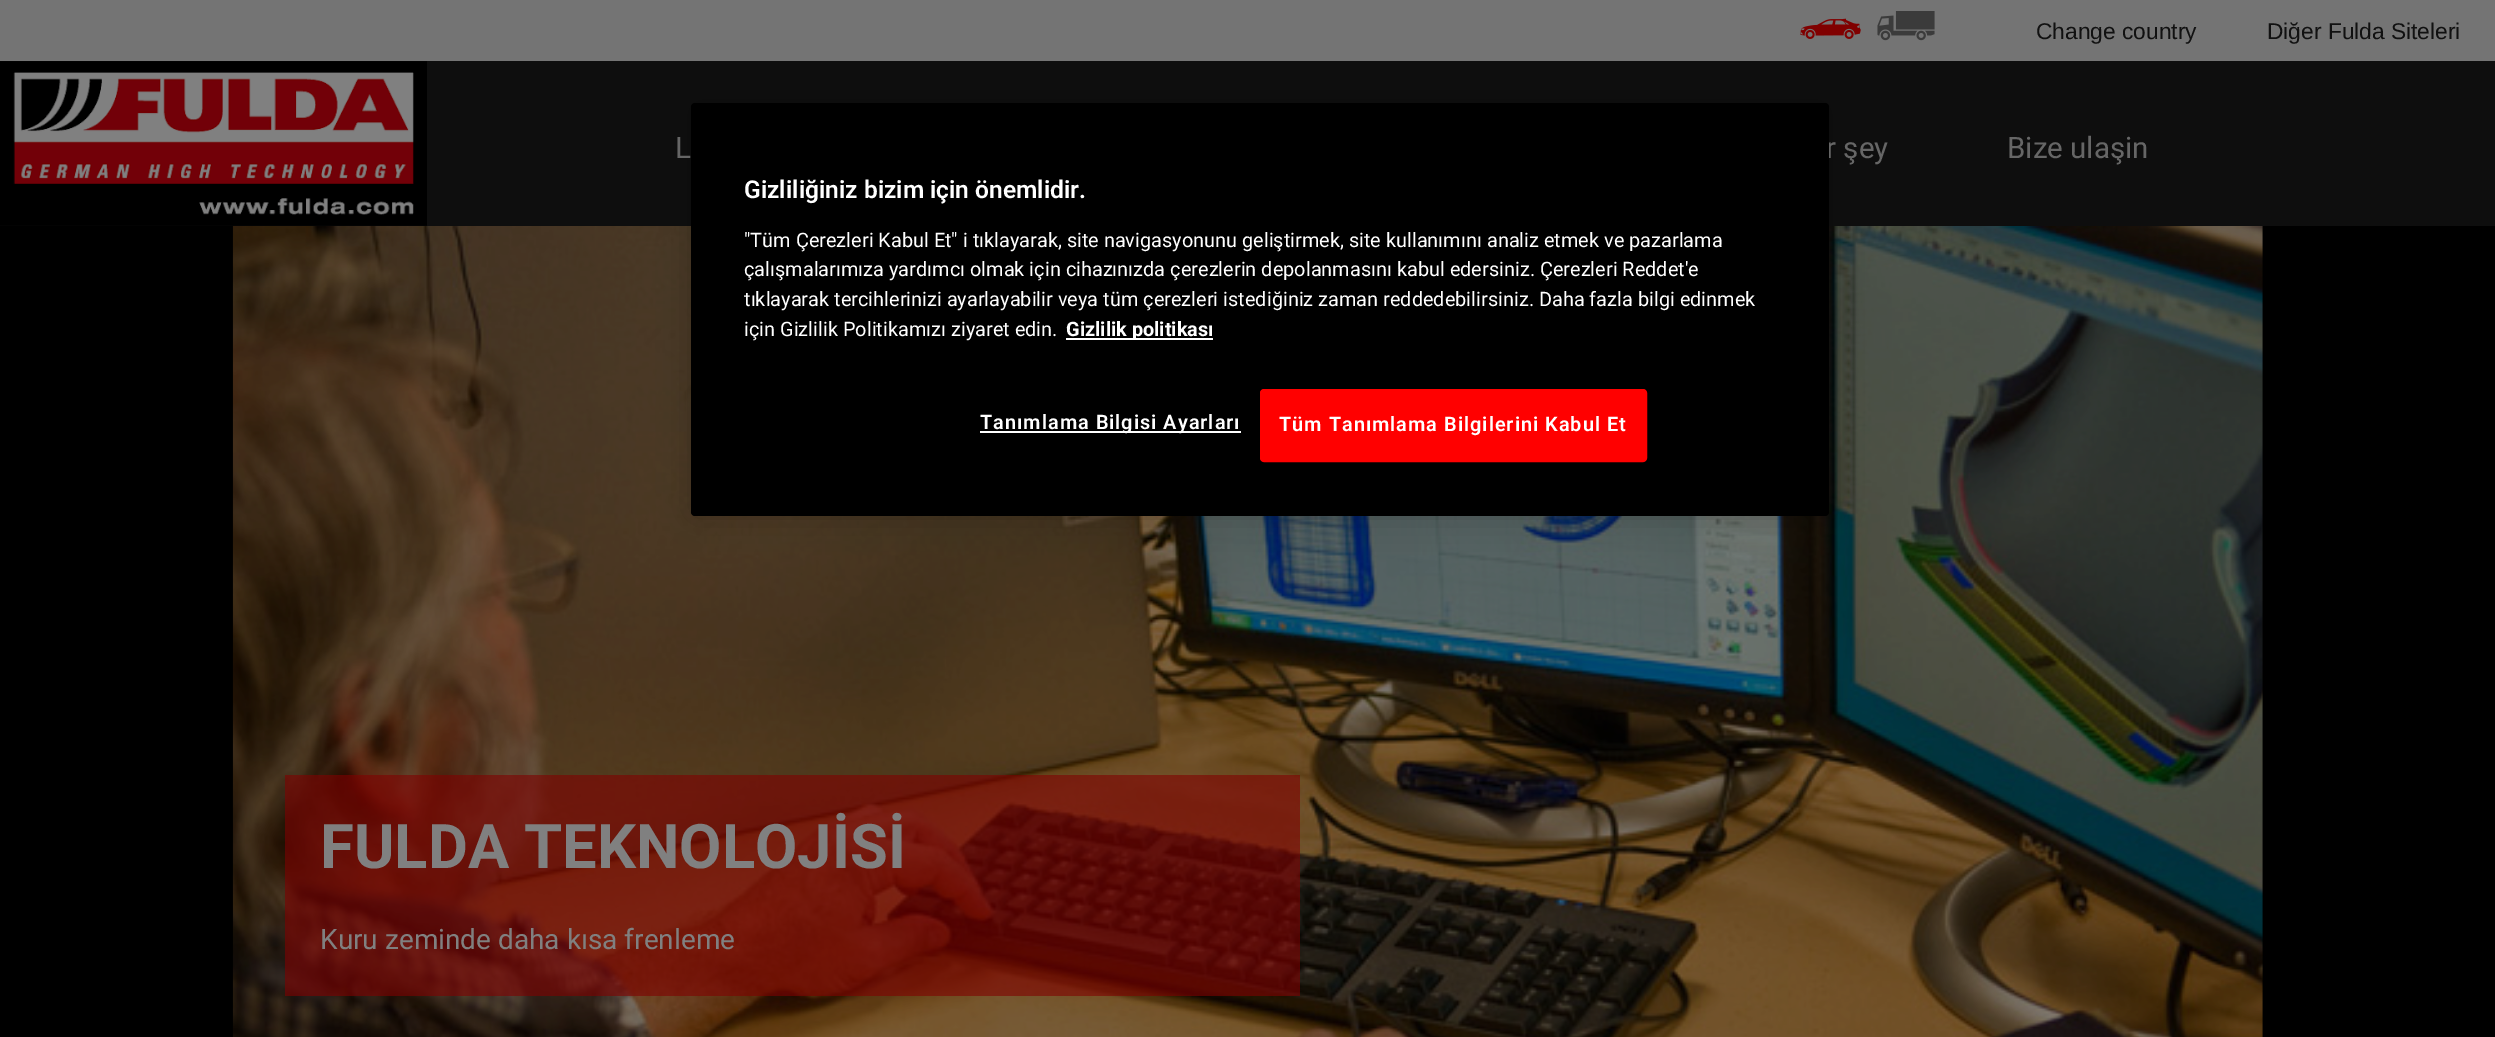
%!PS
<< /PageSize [2495 1037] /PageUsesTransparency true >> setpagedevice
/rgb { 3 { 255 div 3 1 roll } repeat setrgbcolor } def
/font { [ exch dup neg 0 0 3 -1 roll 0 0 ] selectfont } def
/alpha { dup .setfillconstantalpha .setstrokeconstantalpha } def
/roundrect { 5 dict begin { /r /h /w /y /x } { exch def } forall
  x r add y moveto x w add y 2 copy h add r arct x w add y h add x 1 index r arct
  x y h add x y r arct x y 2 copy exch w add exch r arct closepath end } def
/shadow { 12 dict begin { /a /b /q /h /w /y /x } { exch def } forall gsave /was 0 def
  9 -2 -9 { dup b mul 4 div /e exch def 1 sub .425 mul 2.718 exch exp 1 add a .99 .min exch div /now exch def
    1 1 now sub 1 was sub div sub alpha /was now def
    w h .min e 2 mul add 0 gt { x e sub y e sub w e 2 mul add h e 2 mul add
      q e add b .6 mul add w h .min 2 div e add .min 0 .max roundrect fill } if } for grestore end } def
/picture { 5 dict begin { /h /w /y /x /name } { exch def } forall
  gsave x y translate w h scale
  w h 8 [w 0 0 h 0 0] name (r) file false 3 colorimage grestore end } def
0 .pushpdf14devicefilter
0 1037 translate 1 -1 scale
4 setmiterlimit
0 0 0 rgb
0 0 2495 1037 rectfill
116 116 116 rgb
0 0 2495 61 rectfill
14 14 14 rgb
0 61 2495 165 rectfill
(img/1.rgb) 0 61 427 165 picture
(img/2.rgb) 1800 18 61 21 picture
(img/3.rgb) 1877 11 58 30 picture
(img/4.rgb) 232 226 2031 811 picture
0 0 0 rgb
691 103 1138 413 4 16 0.2 shadow
0.6 alpha
128 0 0 rgb
285 775 1015 221 rectfill
/LiberationSans-Regular 22.75 font
1 alpha
17 17 17 rgb
2036 39 moveto (Change country) show
2267 39 moveto (Diğer Fulda Siteleri) show
/Roboto-Regular 29.5 font
102 102 102 rgb
[
  [(L) 675 158]
  [(r şey) 1826 158]
  [(Bize ulaşin) 2007 158]
] { aload pop moveto show } forall
0 0 0 rgb
691 103 1138 413 4 roundrect fill
/Roboto-SemiBold 24.5 font
255 255 255 rgb
744 198 moveto (Gizliliğiniz bizim için önemlidir.) show
/Roboto-Regular 19.92 font
[
  [("Tüm Çerezleri Kabul Et" i tıklayarak, site navigasyonunu geliştirmek, site kullanımını analiz etmek ve pazarlama) 744 247]
  [(çalışmalarımıza yardımcı olmak için cihazınızda çerezlerin depolanmasını kabul edersiniz. Çerezleri Reddet'e) 744 276]
  [(tıklayarak tercihlerinizi ayarlayabilir veya tüm çerezleri istediğiniz zaman reddedebilirsiniz. Daha fazla bilgi edinmek) 744 306]
  [(için Gizlilik Politikamızı ziyaret edin.) 744 336]
] { aload pop moveto show } forall
1066 338 147 2 rectfill
/Roboto-Bold 19.92 font
1066 336 moveto (Gizlilik politikası) show
980 431 261 2 rectfill
/Roboto-SemiBold 19.92 font
980 429 moveto 1 0 (Tanımlama Bilgisi Ayarları) ashow
255 0 0 rgb
1261 390 385 71 3 roundrect gsave fill grestore
2 setlinewidth
stroke
255 255 255 rgb
1279 431 moveto 1 0 (Tüm Tanımlama Bilgilerini Kabul Et) ashow
/Roboto-Bold 61.5 font
128 128 128 rgb
320 868 moveto (FULDA TEKNOLOJİSİ) show
/Roboto-Regular 28 font
320 949 moveto (Kuru zeminde daha kısa frenleme) show
.poppdf14devicefilter showpage
